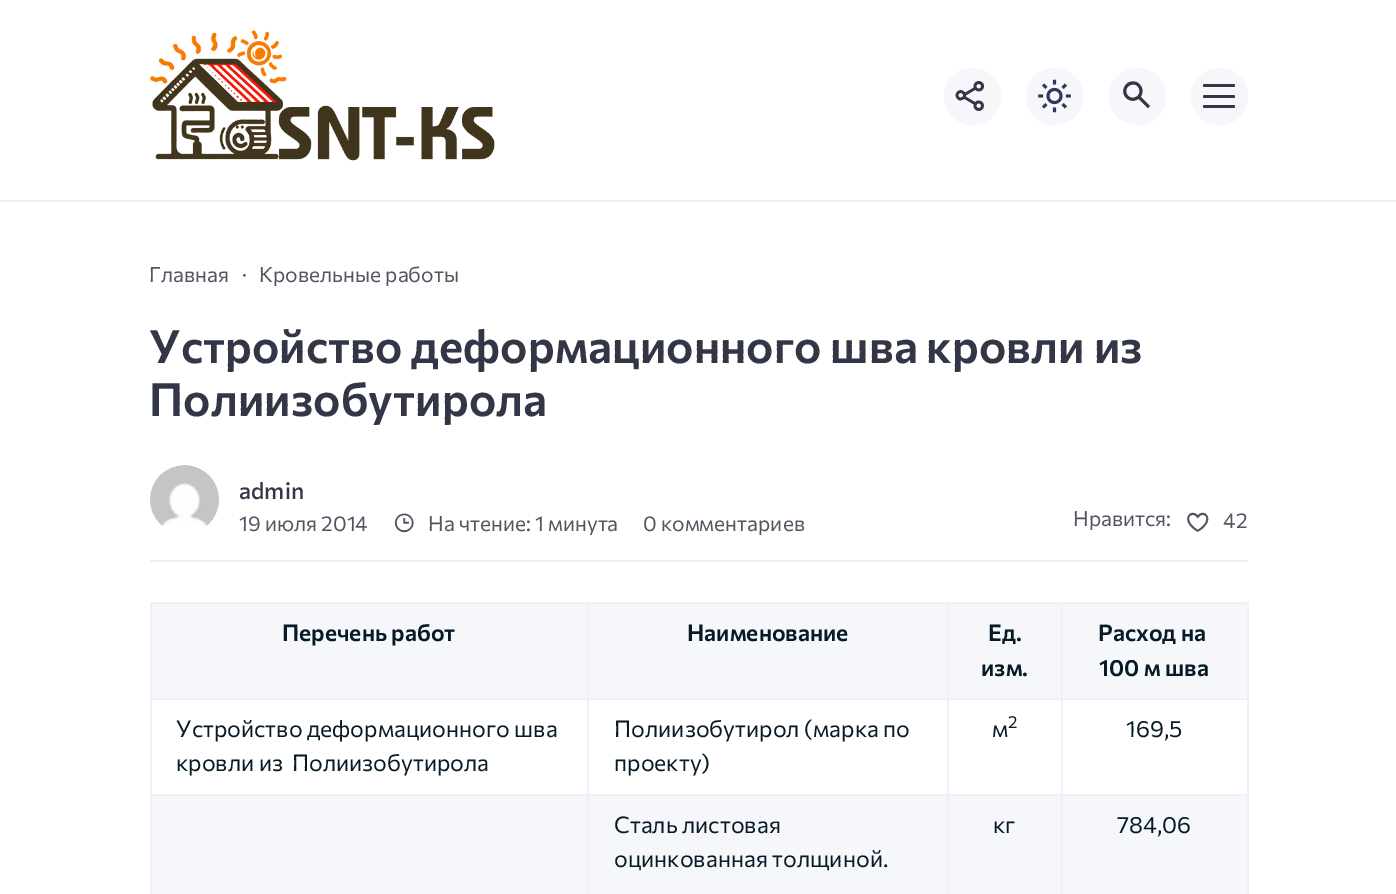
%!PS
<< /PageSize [1396 894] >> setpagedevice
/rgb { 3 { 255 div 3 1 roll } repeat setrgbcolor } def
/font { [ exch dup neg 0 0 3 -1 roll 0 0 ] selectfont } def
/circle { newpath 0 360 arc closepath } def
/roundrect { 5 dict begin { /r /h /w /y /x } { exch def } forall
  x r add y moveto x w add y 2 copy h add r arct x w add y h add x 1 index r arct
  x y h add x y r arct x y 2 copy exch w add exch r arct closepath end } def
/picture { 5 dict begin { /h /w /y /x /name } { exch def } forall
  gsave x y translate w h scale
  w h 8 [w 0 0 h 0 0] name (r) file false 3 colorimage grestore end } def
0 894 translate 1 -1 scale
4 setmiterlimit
255 255 255 rgb
0 0 1396 894 rectfill
239 240 248 rgb
0 200 1396 2 rectfill
(img/1.rgb) 150 30 345 131 picture
247 246 251 rgb
972.5 96.5 28.5 circle fill
(img/2.rgb) 955 81 29 30 picture
1054.5 96.5 28.5 circle fill
(img/3.rgb) 1038 79 33 34 picture
1137.5 96.5 28.5 circle fill
(img/4.rgb) 1123 81 27 28 picture
1219.5 96.5 28.5 circle fill
51 54 70 rgb
1203 95 32 3 1.5 roundrect fill
1203 84 32 3 1.5 roundrect fill
1203 105 32 3 1.5 roundrect fill
239 240 248 rgb
150 560 1098 2 rectfill
(img/5.rgb) 150 465 69 62 picture
(img/6.rgb) 394 513 20 20 picture
(img/7.rgb) 1187 512 22 20 picture
[
  [152 604 1095 94 246 247 251]
  [1061 602 187 2 239 240 248]
  [1061 698 187 2 239 240 248]
  [1061 794 187 2 239 240 248]
  [152 796 1095 98 246 247 251]
  [1061 794 2 100 239 240 248]
  [947 794 115 2 239 240 248]
  [1061 698 2 97 239 240 248]
  [947 698 115 2 239 240 248]
  [1061 602 2 97 239 240 248]
  [947 602 115 2 239 240 248]
  [947 794 2 100 239 240 248]
  [587 794 361 2 239 240 248]
  [947 698 2 97 239 240 248]
  [587 698 361 2 239 240 248]
  [947 602 2 97 239 240 248]
  [587 602 361 2 239 240 248]
  [587 794 2 100 239 240 248]
  [150 794 438 2 239 240 248]
  [587 698 2 97 239 240 248]
  [150 698 438 2 239 240 248]
  [587 602 2 97 239 240 248]
  [150 602 438 2 239 240 248]
  [150 794 2 100 239 240 248]
  [150 698 2 97 239 240 248]
  [150 602 2 97 239 240 248]
  [1247 794 2 100 239 240 248]
  [1247 698 2 97 239 240 248]
  [1247 602 2 97 239 240 248]
] { aload pop rgb rectfill } forall
/Commissioner-Regular 21 font
82 86 97 rgb
[
  [(Главная) 149 282]
  [(·) 242 282]
  [(Кровельные работы) 259 282]
] { aload pop moveto show } forall
/Commissioner-SemiBold 45.9 font
51 54 70 rgb
149 363 moveto (Устройство деформационного шва кровли из) show
149 416 moveto (Полиизобутирола) show
/Commissioner-Medium 23 font
239 499 moveto (admin) show
/Commissioner-Regular 21 font
82 86 97 rgb
[
  [(19 июля 2014) 239 531]
  [(На чтение: 1 минута) 428 531]
  [(0 комментариев) 643 531]
  [(Нравится:) 1073 526]
  [(42) 1223 528]
] { aload pop moveto show } forall
/Commissioner-SemiBold 23 font
7 27 38 rgb
[
  [(Перечень работ) 282 641]
  [(Наименование) 687 641]
  [(Ед.) 988 641]
  [(изм.) 981 676]
  [(Расход на) 1098 641]
  [(100 м шва) 1099 676]
] { aload pop moveto show } forall
/Commissioner-Regular 23 font
[
  [(Устройство деформационного шва) 176 737]
  [(кровли из  Полиизобутирола) 176 771]
  [(Полиизобутирол \(марка по) 614 737]
  [(проекту\)) 614 771]
] { aload pop moveto show } forall
/Commissioner-Regular 17 font
1008 728 moveto (2) show
/Commissioner-Regular 23 font
[
  [(м) 992 737]
  [(169,5) 1126 737]
  [(Сталь листовая) 614 833]
  [(оцинкованная толщиной.) 614 867]
  [(кг) 993 833]
  [(784,06) 1117 833]
] { aload pop moveto show } forall
showpage
